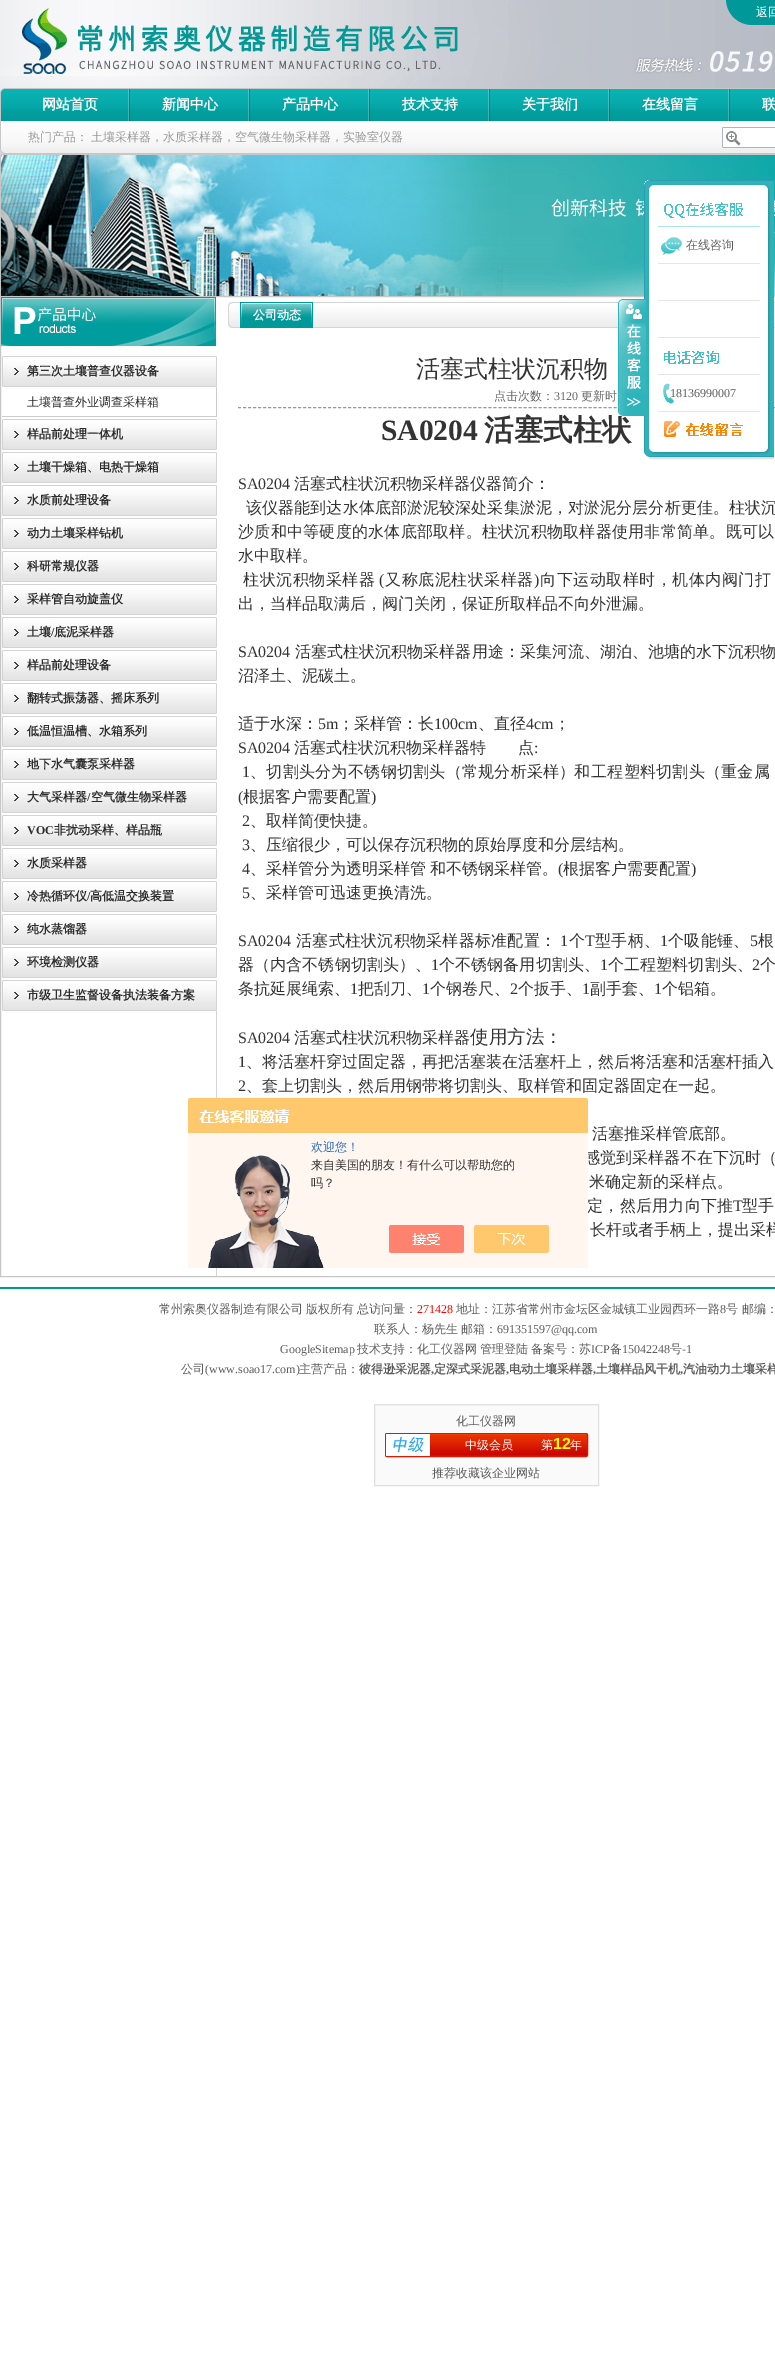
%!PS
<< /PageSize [775 2365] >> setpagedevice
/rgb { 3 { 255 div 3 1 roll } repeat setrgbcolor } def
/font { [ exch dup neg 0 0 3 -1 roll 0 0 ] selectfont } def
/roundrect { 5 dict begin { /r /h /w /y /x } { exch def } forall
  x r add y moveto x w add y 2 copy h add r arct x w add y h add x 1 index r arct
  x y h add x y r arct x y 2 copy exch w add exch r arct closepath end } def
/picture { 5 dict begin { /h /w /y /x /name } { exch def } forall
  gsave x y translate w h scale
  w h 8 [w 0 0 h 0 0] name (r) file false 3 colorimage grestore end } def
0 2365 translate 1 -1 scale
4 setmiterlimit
255 255 255 rgb
0 0 775 2365 rectfill
(img/1.rgb) 773 25 2 63 picture
(img/2.rgb) 0 0 773 88 picture
(img/3.rgb) 726 0 49 25 picture
(img/4.rgb) 4 88 771 66 picture
(img/5.rgb) 0 88 4 66 picture
(img/6.rgb) 128 89 2 32 picture
(img/6.rgb) 248 89 2 32 picture
(img/6.rgb) 368 89 2 32 picture
(img/6.rgb) 488 89 2 32 picture
(img/6.rgb) 608 89 2 32 picture
(img/6.rgb) 728 89 2 32 picture
(img/7.rgb) 722 127 53 21 picture
(img/8.rgb) 0 154 775 142 picture
212 210 211 rgb
216 1011 1 266 rectfill
199 199 199 rgb
0.5 296.5 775 980 rectstroke
(img/10.rgb) 644 448 130 12 picture
(img/11.rgb) 644 180 130 10 picture
(img/20.rgb) 228 302 547 26 picture
153 153 153 rgb
[3 2.01] 0 setdash
238 407.5 moveto 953 407.5 lineto stroke
(img/12.rgb) 644 190 130 258 picture
172 229 249 rgb
658 226 102 1 rectfill
(img/13.rgb) 664 202 79 16 picture
230 229 228 rgb
658 263 102 1 rectfill
(img/14.rgb) 661 237 21 18 picture
[
  [658 300 102 1 230 229 228]
  [658 337 102 1 230 229 228]
  [658 374 102 1 230 229 228]
] { aload pop rgb rectfill } forall
(img/15.rgb) 664 351 55 13 picture
658 411 102 1 rectfill
(img/16.rgb) 663 383 12 21 picture
(img/17.rgb) 664 421 79 16 picture
(img/18.rgb) 1 297 215 49 picture
(img/19.rgb) 2 356 215 31 picture
204 204 204 rgb
216 387 1 30 rectfill
2 416 215 1 rectfill
(img/19.rgb) 2 419 215 31 picture
(img/19.rgb) 2 452 215 31 picture
(img/19.rgb) 2 485 215 31 picture
(img/19.rgb) 2 518 215 31 picture
(img/19.rgb) 2 551 215 31 picture
(img/19.rgb) 2 584 215 31 picture
(img/19.rgb) 2 617 215 31 picture
(img/19.rgb) 2 650 215 31 picture
(img/19.rgb) 2 683 215 31 picture
(img/19.rgb) 2 716 215 31 picture
(img/19.rgb) 2 749 215 31 picture
(img/19.rgb) 2 782 215 31 picture
(img/19.rgb) 2 815 215 31 picture
(img/19.rgb) 2 848 215 31 picture
(img/19.rgb) 2 881 215 31 picture
(img/19.rgb) 2 914 215 31 picture
(img/19.rgb) 2 947 215 31 picture
(img/19.rgb) 2 980 215 31 picture
(img/21.rgb) 240 302 73 26 picture
0 153 153 rgb
0 1287 775 2 rectfill
250 250 250 rgb
374.5 1404.5 moveto 598.5 1404.5 lineto 598.5 1485.5 lineto 374.5 1485.5 lineto closepath gsave fill grestore
223 223 223 rgb
[] 0 setdash
stroke
(img/22.rgb) 385 1434 203 22 picture
223 23 0 rgb
385.5 1433.5 202 23 1.5 roundrect stroke
255 255 255 rgb
387 1434 moveto 430 1434 lineto 430 1456 lineto 387 1456 lineto 386.5 1456 386 1455.5 386 1455 curveto 386 1435 lineto 386 1434.5 386.5 1434 387 1434 curveto closepath fill
(img/23.rgb) 393 1437 31 16 picture
/WenQuanYiZenHei-Medium 12 font
756 16 moveto (返回) show
/WenQuanYiZenHei-Bold 14 font
[
  [(网站首页) 42 109]
  [(新闻中心) 162 109]
  [(产品中心) 282 109]
  [(技术支持) 402 109]
  [(关于我们) 522 109]
  [(在线留言) 642 109]
  [(联) 762 109]
] { aload pop moveto show } forall
/WenQuanYiZenHei-Medium 12 font
153 153 153 rgb
28 141 moveto (热门产品：) show
91 141 moveto (土壤采样器，水质采样器，空气微生物采样器，实验室仪器) show
92 92 92 rgb
686 249 moveto (在线咨询) show
/LiberationSerif-Regular 12 font
670 397 moveto (18136990007) show
/WenQuanYiZenHei-Bold 12 font
45 45 45 rgb
27 375 moveto (第三次土壤普查仪器设备) show
/WenQuanYiZenHei-Medium 12 font
27 406 moveto (土壤普查外业调查采样箱) show
/WenQuanYiZenHei-Bold 12 font
[
  [(样品前处理一体机) 27 438]
  [(土壤干燥箱、电热干燥箱) 27 471]
  [(水质前处理设备) 27 504]
  [(动力土壤采样钻机) 27 537]
  [(科研常规仪器) 27 570]
  [(采样管自动旋盖仪) 27 603]
  [(土壤) 27 636]
] { aload pop moveto show } forall
/LiberationSerif-Bold 12 font
51 636 moveto (/) show
/WenQuanYiZenHei-Bold 12 font
[
  [(底泥采样器) 54 636]
  [(样品前处理设备) 27 669]
  [(翻转式振荡器、摇床系列) 27 702]
  [(低温恒温槽、水箱系列) 27 735]
  [(地下水气囊泵采样器) 27 768]
  [(大气采样器 空气微生物采样器) 27 801]
] { aload pop moveto show } forall
/LiberationSerif-Bold 12 font
87 801 moveto (/) show
27 834 moveto (VOC) show
/WenQuanYiZenHei-Bold 12 font
[
  [(非扰动采样、样品瓶) 54 834]
  [(水质采样器) 27 867]
  [(冷热循环仪) 27 900]
] { aload pop moveto show } forall
/LiberationSerif-Bold 12 font
87 900 moveto (/) show
/WenQuanYiZenHei-Bold 12 font
[
  [(高低温交换装置) 90 900]
  [(纯水蒸馏器) 27 933]
  [(环境检测仪器) 27 966]
  [(市级卫生监督设备执法装备方案) 27 999]
] { aload pop moveto show } forall
255 255 255 rgb
253 319 moveto (公司动态) show
/WenQuanYiZenHei-Medium 24 font
51 51 51 rgb
416 377 moveto (活塞式柱状沉积物) show
/WenQuanYiZenHei-Medium 12 font
102 102 102 rgb
494 400 moveto (点击次数：) show
/LiberationSerif-Regular 12 font
554 400 moveto (3120) show
/WenQuanYiZenHei-Medium 12 font
581 400 moveto (更新时) show
/LiberationSerif-Bold 29.5 font
51 51 51 rgb
381 440 moveto (SA0204) show
/WenQuanYiZenHei-Bold 29.5 font
484 440 moveto (活塞式柱状) show
(img/9.rgb) 618 299 28 117 picture
/LiberationSerif-Regular 16 font
238 489 moveto (SA0204) show
/WenQuanYiZenHei-Medium 16 font
294 489 moveto (活塞式柱状沉积物采样器仪器简介：) show
246 513 moveto 0.1 0 (该仪器能到达水体底部淤泥较深处采集淤泥，对淤泥分层分析更佳。柱状沉) ashow
238 537 moveto 0.25 0 (沙质和中等硬度的水体底部取样。柱状沉积物取样器使用非常简单。既可以) ashow
238 561 moveto (水中取样。) show
243 585 moveto 0.5 0 (柱状沉积物采样器) ashow
/LiberationSerif-Regular 16 font
379 585 moveto 0.5 0 (\() ashow
/WenQuanYiZenHei-Medium 16 font
385 585 moveto 0.5 0 (又称底泥柱状采样器) ashow
/LiberationSerif-Regular 16 font
534 585 moveto 0.5 0 (\)) ashow
/WenQuanYiZenHei-Medium 16 font
540 585 moveto 0.5 0 (向下运动取样时，机体内阀门打) ashow
238 609 moveto (出，当样品取满后，阀门关闭，保证所取样品不向外泄漏。) show
/LiberationSerif-Regular 16 font
238 657 moveto (SA) show
258 657 moveto 0.05 0 (0204) ashow
/WenQuanYiZenHei-Medium 16 font
295 657 moveto 0.05 0 (活塞式柱状沉积物采样器用途：采集河流、湖泊、池塘的水下沉积物) ashow
238 681 moveto (沼泽土、泥碳土。) show
238 729 moveto (适于水深：) show
/LiberationSerif-Regular 16 font
318 729 moveto (5m) show
/WenQuanYiZenHei-Medium 16 font
338 729 moveto (；采样管：长) show
/LiberationSerif-Regular 16 font
434 729 moveto (100cm) show
/WenQuanYiZenHei-Medium 16 font
478 729 moveto (、直径) show
/LiberationSerif-Regular 16 font
526 729 moveto (4cm) show
/WenQuanYiZenHei-Medium 16 font
554 729 moveto (；) show
/LiberationSerif-Regular 16 font
238 753 moveto (SA0204) show
/WenQuanYiZenHei-Medium 16 font
294 753 moveto (活塞式柱状沉积物采样器特　　点) show
/LiberationSerif-Regular 16 font
534 753 moveto (:) show
242 777 moveto 0.25 0 (1) ashow
/WenQuanYiZenHei-Medium 16 font
250 777 moveto 0.25 0 (、切割头分为) ashow
348 777 moveto 0.25 0 (不锈钢切割头（常规分析采样）) ashow
574 777 moveto (和) show
591 777 moveto 0.25 0 (工程塑料切割头（重金属) ashow
/LiberationSerif-Regular 16 font
238 802 moveto (\() show
/WenQuanYiZenHei-Medium 16 font
243 802 moveto (根据客户需要配置) show
/LiberationSerif-Regular 16 font
371 802 moveto (\)) show
242 826 moveto (2) show
/WenQuanYiZenHei-Medium 16 font
250 826 moveto (、取样简便快捷。) show
/LiberationSerif-Regular 16 font
242 850 moveto (3) show
/WenQuanYiZenHei-Medium 16 font
250 850 moveto (、压缩很少，可以保存沉积物的原始厚度和分层结构。) show
/LiberationSerif-Regular 16 font
242 874 moveto (4) show
/WenQuanYiZenHei-Medium 16 font
250 874 moveto (、采样管分为透明采样管) show
430 874 moveto (和不锈钢采样管。) show
/LiberationSerif-Regular 16 font
558 874 moveto (\() show
/WenQuanYiZenHei-Medium 16 font
563 874 moveto (根据客户需要配置) show
/LiberationSerif-Regular 16 font
691 874 moveto (\)) show
242 898 moveto (5) show
/WenQuanYiZenHei-Medium 16 font
250 898 moveto (、采样管可迅速更换清洗。) show
/LiberationSerif-Regular 16 font
238 946 moveto (SA) show
258 946 moveto 0.25 0 (0204) ashow
/WenQuanYiZenHei-Medium 16 font
296 946 moveto 0.25 0 (活塞式柱状沉积物采样器标准配置：) ashow
/LiberationSerif-Regular 16 font
560 946 moveto 0.25 0 (1) ashow
/WenQuanYiZenHei-Medium 16 font
569 946 moveto 0.25 0 (个) ashow
/LiberationSerif-Regular 16 font
585 946 moveto 0.25 0 (T) ashow
/WenQuanYiZenHei-Medium 16 font
595 946 moveto 0.25 0 (型手柄、) ashow
/LiberationSerif-Regular 16 font
660 946 moveto 0.25 0 (1) ashow
/WenQuanYiZenHei-Medium 16 font
668 946 moveto 0.25 0 (个吸能锤、) ashow
/LiberationSerif-Regular 16 font
750 946 moveto 0.25 0 (5) ashow
/WenQuanYiZenHei-Medium 16 font
758 946 moveto 0.25 0 (根) ashow
238 970 moveto 0.1 0 (器（内含不锈钢切割头）、) ashow
/LiberationSerif-Regular 16 font
431 970 moveto 0.1 0 (1) ashow
/WenQuanYiZenHei-Medium 16 font
439 970 moveto 0.1 0 (个不锈钢备用切割头、) ashow
/LiberationSerif-Regular 16 font
600 970 moveto 0.1 0 (1) ashow
/WenQuanYiZenHei-Medium 16 font
608 970 moveto 0.1 0 (个工程塑料切割头、) ashow
/LiberationSerif-Regular 16 font
752 970 moveto 0.1 0 (2) ashow
/WenQuanYiZenHei-Medium 16 font
760 970 moveto 0.1 0 (个) ashow
238 994 moveto (条抗延展绳索、) show
/LiberationSerif-Regular 16 font
350 994 moveto (1) show
/WenQuanYiZenHei-Medium 16 font
358 994 moveto (把刮刀、) show
/LiberationSerif-Regular 16 font
422 994 moveto (1) show
/WenQuanYiZenHei-Medium 16 font
430 994 moveto (个钢卷尺、) show
/LiberationSerif-Regular 16 font
510 994 moveto (2) show
/WenQuanYiZenHei-Medium 16 font
518 994 moveto (个扳手、) show
/LiberationSerif-Regular 16 font
582 994 moveto (1) show
/WenQuanYiZenHei-Medium 16 font
590 994 moveto (副手套、) show
/LiberationSerif-Regular 16 font
654 994 moveto (1) show
/WenQuanYiZenHei-Medium 16 font
662 994 moveto (个铝箱) show
68 68 68 rgb
710 994 moveto (。) show
/LiberationSerif-Regular 16 font
51 51 51 rgb
238 1043 moveto (SA0204) show
/WenQuanYiZenHei-Medium 16 font
294 1043 moveto (活塞式柱状沉积物采样器) show
/WenQuanYiZenHei-Medium 18.5 font
470 1043 moveto (使用方法：) show
/LiberationSerif-Regular 16 font
238 1067 moveto (1) show
/WenQuanYiZenHei-Medium 16 font
246 1067 moveto (、将活塞杆穿过固定器，再把活塞装在活塞杆上，然后将活塞和活塞杆插入) show
/LiberationSerif-Regular 16 font
238 1091 moveto (2) show
/WenQuanYiZenHei-Medium 16 font
246 1091 moveto (、套上切割头，然后用钢带将切割头、取样管和固定器固定在一起。) show
592 1139 moveto (活塞推采样管底部。) show
584 1163 moveto 0.1 0 (感觉到采样器不在下沉时（) ashow
589 1187 moveto (米确定新的采样点。) show
587 1211 moveto 0.25 0 (定，然后用力向下推) ashow
/LiberationSerif-Regular 16 font
733 1211 moveto 0.25 0 (T) ashow
/WenQuanYiZenHei-Medium 16 font
742 1211 moveto 0.25 0 (型手) ashow
590 1235 moveto (长杆或者手柄上，提出采样) show
/WenQuanYiZenHei-Medium 12 font
92 92 92 rgb
159 1313 moveto -1 0 32 (常州索奥仪器制造有限公司 版权所有) widthshow
357 1313 moveto (总访问量：) show
/LiberationSerif-Regular 12 font
255 0 0 rgb
417 1313 moveto (271428) show
/WenQuanYiZenHei-Medium 12 font
92 92 92 rgb
456 1313 moveto (地址：江苏省常州市金坛区金城镇工业园西环一路) show
/LiberationSerif-Regular 12 font
720 1313 moveto (8) show
/WenQuanYiZenHei-Medium 12 font
726 1313 moveto (号 邮编：) show
374 1333 moveto -1 0 32 (联系人：杨先生 邮箱：) widthshow
/LiberationSerif-Regular 12 font
497 1333 moveto (691351597@qq.com) show
280 1353 moveto (GoogleSitemap) show
/WenQuanYiZenHei-Medium 12 font
[
  [(技术支持：化工仪器网) 357 1353]
  [(管理登陆) 480 1353]
  [(备案号：苏) 531 1353]
] { aload pop moveto show } forall
/LiberationSerif-Regular 12 font
591 1353 moveto (ICP) show
/WenQuanYiZenHei-Medium 12 font
610 1353 moveto (备) show
/LiberationSerif-Regular 12 font
622 1353 moveto (15042248) show
/WenQuanYiZenHei-Medium 12 font
670 1353 moveto (号) show
/LiberationSerif-Regular 12 font
682 1353 moveto (-1) show
/WenQuanYiZenHei-Medium 12 font
181 1373 moveto (公司) show
/LiberationSerif-Regular 12 font
205 1373 moveto (\(www.soao17.com\)) show
/WenQuanYiZenHei-Medium 12 font
299 1373 moveto (主营产品：) show
/WenQuanYiZenHei-Bold 12 font
359 1373 moveto (彼得逊采泥器) show
/LiberationSerif-Bold 12 font
431 1373 moveto (,) show
/WenQuanYiZenHei-Bold 12 font
434 1373 moveto (定深式采泥器) show
/LiberationSerif-Bold 12 font
506 1373 moveto (,) show
/WenQuanYiZenHei-Bold 12 font
509 1373 moveto (电动土壤采样器) show
/LiberationSerif-Bold 12 font
593 1373 moveto (,) show
/WenQuanYiZenHei-Bold 12 font
596 1373 moveto (土壤样品风干机) show
/LiberationSerif-Bold 12 font
680 1373 moveto (,) show
/WenQuanYiZenHei-Bold 12 font
683 1373 moveto (汽油动力土壤采样) show
/WenQuanYiZenHei-Medium 12 font
456 1425 moveto (化工仪器网) show
255 255 255 rgb
465 1449 moveto (中级会员) show
541 1449 moveto (第) show
/LiberationSans-Bold 16 font
252 255 0 rgb
553 1449 moveto (12) show
/WenQuanYiZenHei-Medium 12 font
255 255 255 rgb
570 1449 moveto (年) show
92 92 92 rgb
432 1477 moveto (推荐收藏该企业网站) show
(img/24.rgb) 188 1098 400 170 picture
46 110 198 rgb
311 1151 moveto (欢迎您！) show
51 51 51 rgb
311 1169 moveto (来自美国的朋友！有什么可以帮助您的) show
311 1187 moveto (吗？) show
showpage
